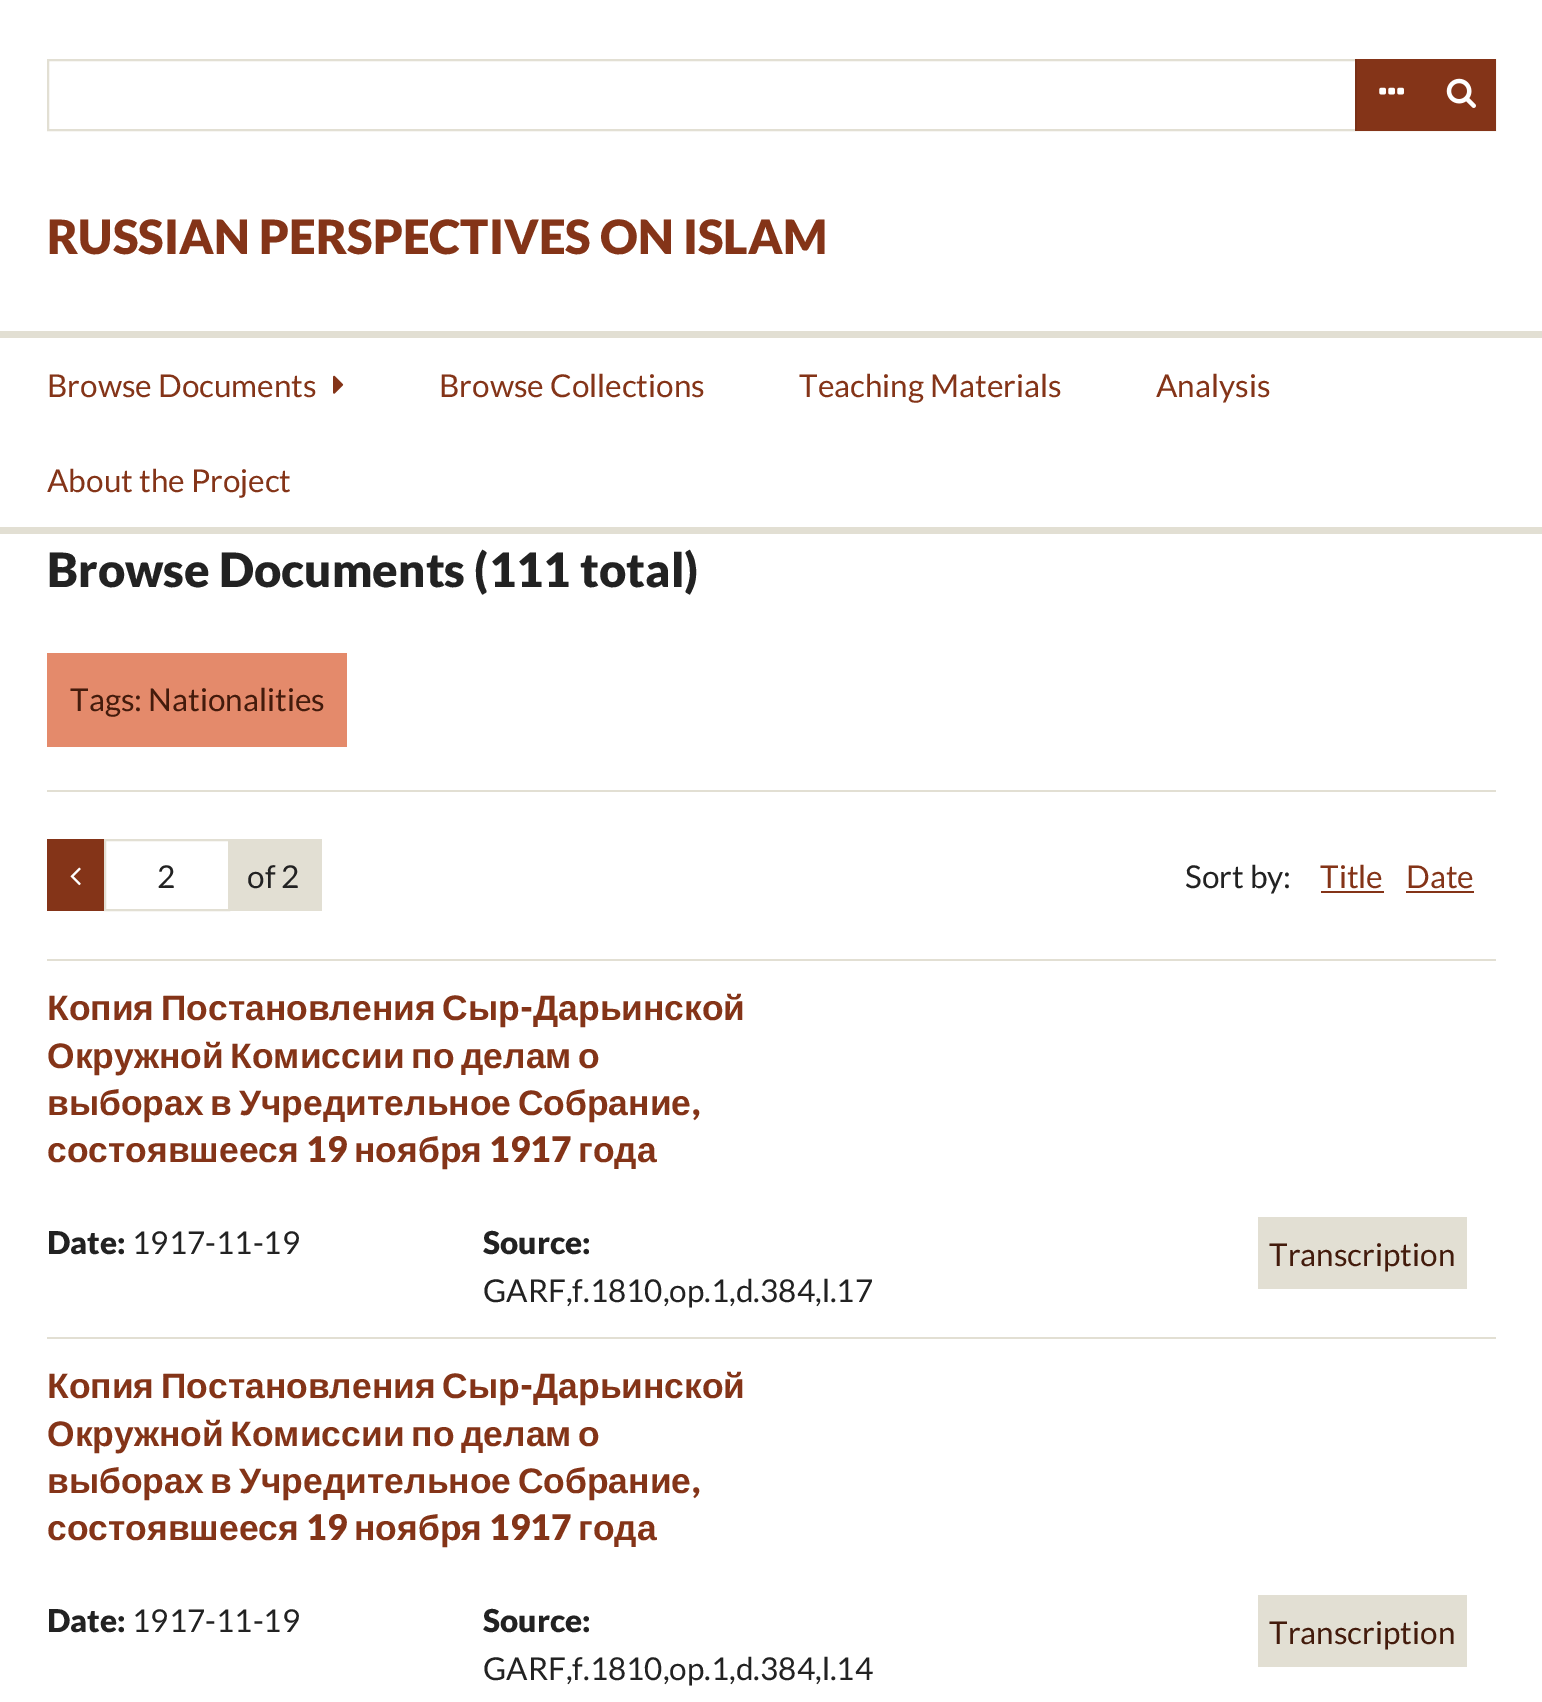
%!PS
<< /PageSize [1542 1702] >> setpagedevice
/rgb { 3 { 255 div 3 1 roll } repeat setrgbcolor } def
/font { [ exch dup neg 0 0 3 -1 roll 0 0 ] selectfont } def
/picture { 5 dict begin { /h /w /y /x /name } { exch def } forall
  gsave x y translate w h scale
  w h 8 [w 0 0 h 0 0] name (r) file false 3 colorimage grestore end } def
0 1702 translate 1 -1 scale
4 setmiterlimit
255 255 255 rgb
0 0 1542 1702 rectfill
226 223 211 rgb
2 setlinewidth
48 60 1447 70 rectstroke
132 52 24 rgb
1357 59 139 72 rectfill
121 48 22 rgb
1355 59 2 72 rectfill
(img/1.rgb) 1379 87 25 8 picture
(img/2.rgb) 1446 78 30 30 picture
226 223 211 rgb
0 331 1542 7 rectfill
0 527 1542 7 rectfill
(img/3.rgb) 333 375 11 19 picture
[
  [47 790 1449 2 226 223 211]
  [47 653 300 94 228 138 107]
  [230 839 92 72 226 223 211]
  [47 839 57 72 132 52 24]
] { aload pop rgb rectfill } forall
(img/4.rgb) 70 867 11 19 picture
226 223 211 rgb
105 840 124 70 rectstroke
[
  [1321 891 63 2 132 52 24]
  [1406 891 68 2 132 52 24]
  [47 959 1449 2 226 223 211]
  [1258 1217 209 72 226 223 211]
  [47 1337 1449 2 226 223 211]
  [1258 1595 209 72 226 223 211]
] { aload pop rgb rectfill } forall
/Lato-Black 47.25 font
132 52 24 rgb
47 254 moveto (RUSSIAN PERSPECTIVES ON ISLAM) show
/Lato-Regular 31.5 font
[
  [(Browse Documents) 47 397]
  [(Browse Collections) 439 397]
  [(Teaching Materials) 799 397]
  [(Analysis) 1156 397]
  [(About the Project) 47 492]
] { aload pop moveto show } forall
/Lato-Black 47.25 font
34 34 34 rgb
47 587 moveto (Browse Documents \(111 total\)) show
/Lato-Regular 31.5 font
67 27 12 rgb
70 711 moveto (Tags: Nationalities) show
34 34 34 rgb
[
  [(2) 157 888]
  [(of 2) 247 888]
  [(Sort by:) 1185 888]
] { aload pop moveto show } forall
132 52 24 rgb
1320 888 moveto (Title) show
1406 888 moveto (Date) show
/LiberationSans-Bold 35.4 font
47 1020 moveto -3 0 32 (Копия Постановления Сыр) widthshow
/Lato-Black 35.4 font
520 1020 moveto (-) show
/LiberationSans-Bold 35.4 font
533 1020 moveto (Дарьинской) show
47 1068 moveto -3 0 32 (Окружной Комиссии по делам о) widthshow
47 1115 moveto -3 0 32 (выборах в Учредительное Собрание) widthshow
/Lato-Black 35.4 font
692 1115 moveto (,) show
/LiberationSans-Bold 35.4 font
47 1162 moveto (состоявшееся) show
/Lato-Black 35.4 font
306 1162 moveto (19) show
/LiberationSans-Bold 35.4 font
354 1162 moveto (ноября) show
/Lato-Black 35.4 font
489 1162 moveto (1917) show
/LiberationSans-Bold 35.4 font
578 1162 moveto (года) show
/Lato-Black 31.5 font
34 34 34 rgb
47 1254 moveto (Date:) show
/Lato-Regular 31.5 font
132 1254 moveto (1917-11-19) show
/Lato-Black 31.5 font
483 1254 moveto (Source:) show
/Lato-Regular 31.5 font
483 1302 moveto (GARF,f.1810,op.1,d.384,l.17) show
67 27 12 rgb
1269 1266 moveto (Transcription) show
/LiberationSans-Bold 35.4 font
132 52 24 rgb
47 1398 moveto -3 0 32 (Копия Постановления Сыр) widthshow
/Lato-Black 35.4 font
520 1398 moveto (-) show
/LiberationSans-Bold 35.4 font
533 1398 moveto (Дарьинской) show
47 1446 moveto -3 0 32 (Окружной Комиссии по делам о) widthshow
47 1493 moveto -3 0 32 (выборах в Учредительное Собрание) widthshow
/Lato-Black 35.4 font
692 1493 moveto (,) show
/LiberationSans-Bold 35.4 font
47 1540 moveto (состоявшееся) show
/Lato-Black 35.4 font
306 1540 moveto (19) show
/LiberationSans-Bold 35.4 font
354 1540 moveto (ноября) show
/Lato-Black 35.4 font
489 1540 moveto (1917) show
/LiberationSans-Bold 35.4 font
578 1540 moveto (года) show
/Lato-Black 31.5 font
34 34 34 rgb
47 1632 moveto (Date:) show
/Lato-Regular 31.5 font
132 1632 moveto (1917-11-19) show
/Lato-Black 31.5 font
483 1632 moveto (Source:) show
/Lato-Regular 31.5 font
483 1680 moveto (GARF,f.1810,op.1,d.384,l.14) show
67 27 12 rgb
1269 1644 moveto (Transcription) show
showpage
